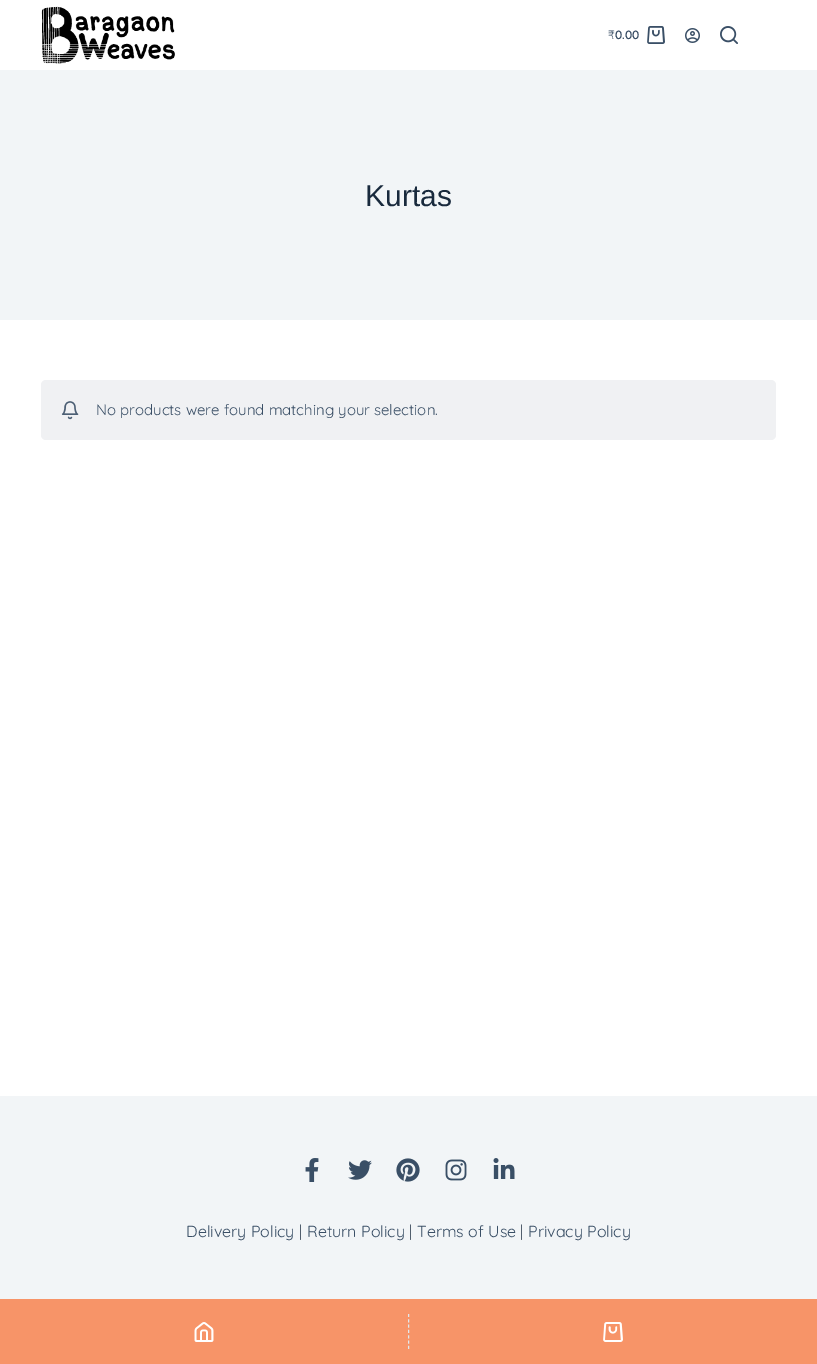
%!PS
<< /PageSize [817 1364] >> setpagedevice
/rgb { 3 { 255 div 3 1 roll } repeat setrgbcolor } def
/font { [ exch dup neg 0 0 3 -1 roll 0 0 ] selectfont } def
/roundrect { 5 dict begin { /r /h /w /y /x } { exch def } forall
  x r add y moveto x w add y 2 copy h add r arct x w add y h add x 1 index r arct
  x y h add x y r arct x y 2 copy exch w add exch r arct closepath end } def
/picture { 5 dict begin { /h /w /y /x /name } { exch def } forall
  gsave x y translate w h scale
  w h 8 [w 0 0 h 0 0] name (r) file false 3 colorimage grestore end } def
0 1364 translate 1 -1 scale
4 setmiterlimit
255 255 255 rgb
0 0 817 1364 rectfill
(img/1.rgb) 41 6 134 58 picture
(img/2.rgb) 647 26 18 18 picture
(img/3.rgb) 685 28 15 15 picture
(img/4.rgb) 720 26 18 18 picture
242 245 247 rgb
0 70 817 250 rectfill
240 241 243 rgb
41 380 735 60 5 roundrect fill
(img/5.rgb) 61 401 18 19 picture
242 245 247 rgb
0 1096 817 203 rectfill
(img/6.rgb) 305 1158 14 24 picture
(img/7.rgb) 348 1160 24 20 picture
(img/8.rgb) 396 1158 24 24 picture
(img/9.rgb) 445 1159 22 22 picture
(img/10.rgb) 493 1158 22 21 picture
247 148 104 rgb
0 1299 817 65 rectfill
(img/11.rgb) 194 1322 20 20 picture
225 232 237 rgb
[3 2.33] 0 setdash
408.5 1314 moveto 408.5 1349 lineto stroke
(img/12.rgb) 603 1322 20 20 picture
/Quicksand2-Regular 12 font
58 79 102 rgb
608 39 moveto (₹) show
/Quicksand-SemiBold 12 font
615 39 moveto (0.00) show
/LiberationSans-Regular 30 font
25 42 61 rgb
365 206 moveto (Kurtas) show
/Quicksand-Regular 15 font
58 79 102 rgb
96 415 moveto (No products were found matching your selection.) show
/Quicksand-Regular 16 font
186 1237 moveto (Delivery Policy) show
25 42 61 rgb
299 1237 moveto (|) show
58 79 102 rgb
307 1237 moveto (Return Policy) show
25 42 61 rgb
409 1237 moveto (|) show
58 79 102 rgb
417 1237 moveto (Terms of Use) show
25 42 61 rgb
520 1237 moveto (|) show
58 79 102 rgb
528 1237 moveto (Privacy Policy) show
showpage
